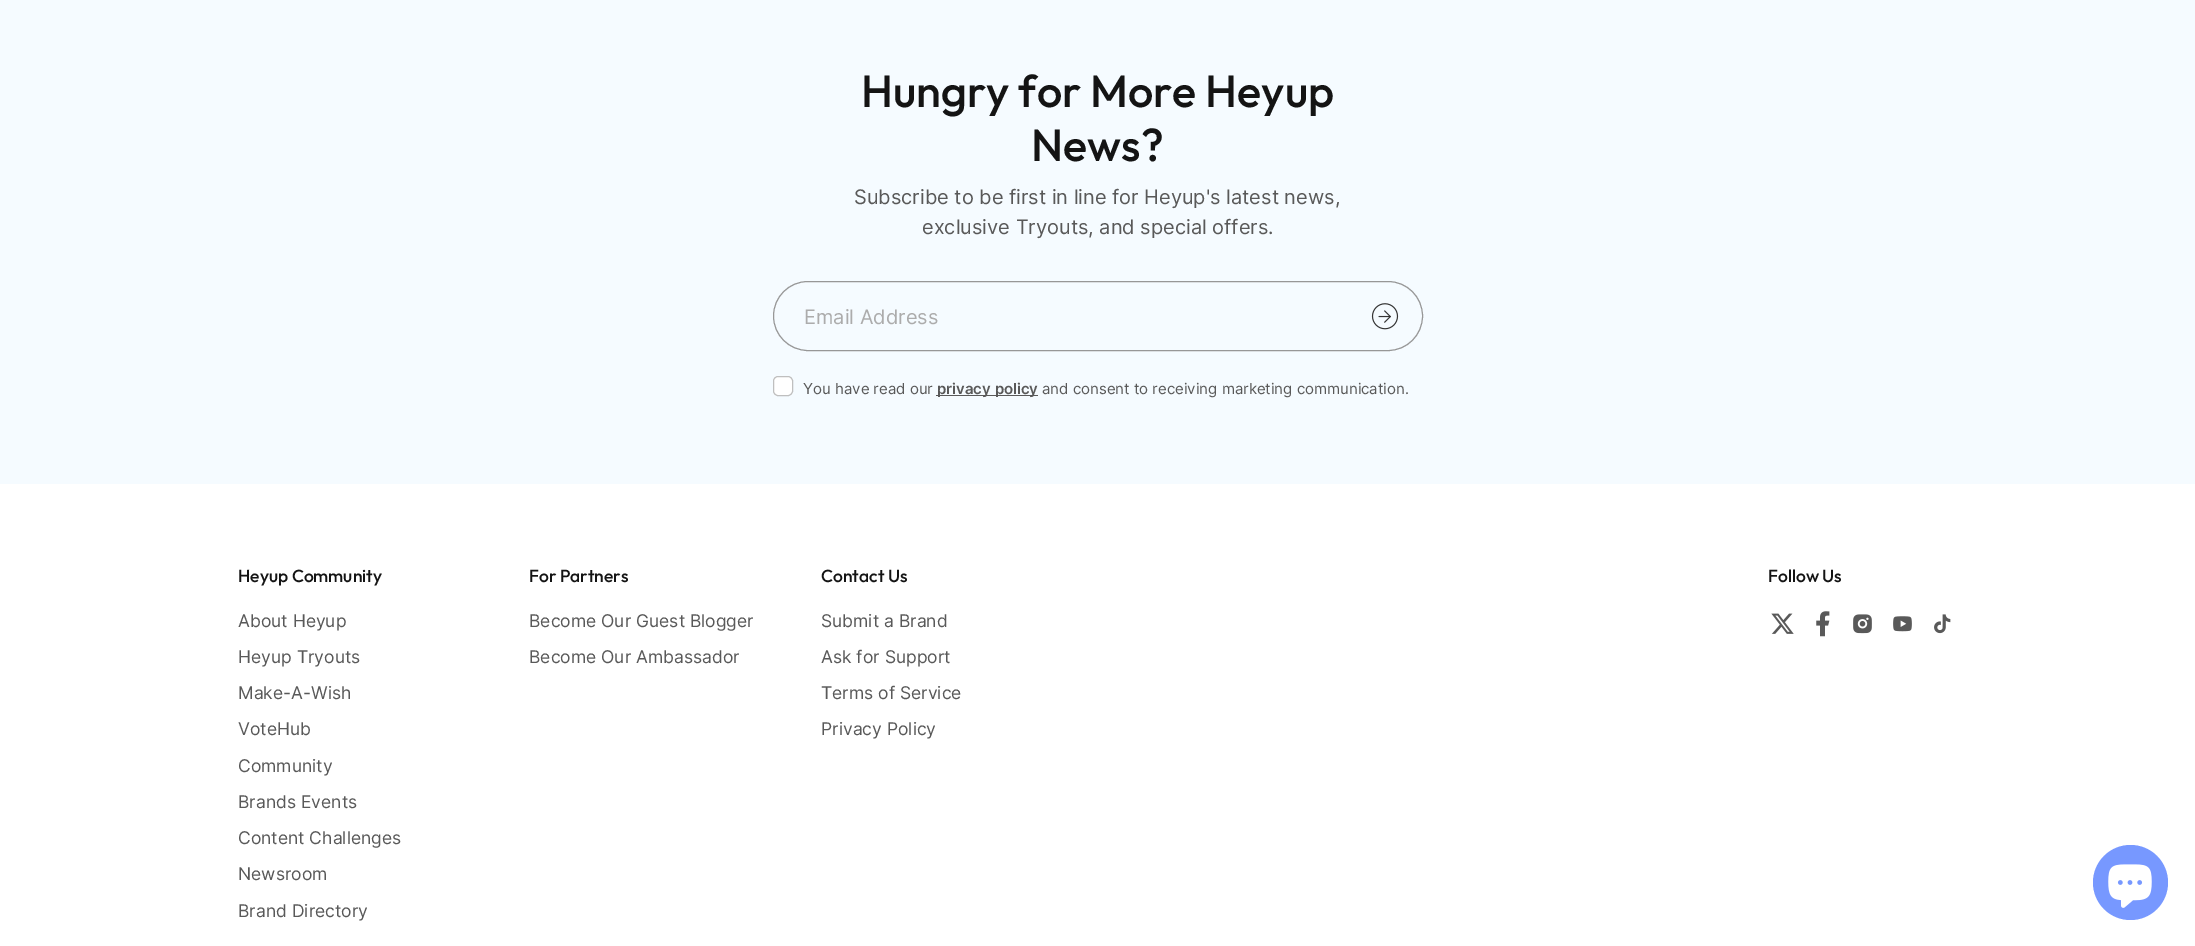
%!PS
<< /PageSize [2195 946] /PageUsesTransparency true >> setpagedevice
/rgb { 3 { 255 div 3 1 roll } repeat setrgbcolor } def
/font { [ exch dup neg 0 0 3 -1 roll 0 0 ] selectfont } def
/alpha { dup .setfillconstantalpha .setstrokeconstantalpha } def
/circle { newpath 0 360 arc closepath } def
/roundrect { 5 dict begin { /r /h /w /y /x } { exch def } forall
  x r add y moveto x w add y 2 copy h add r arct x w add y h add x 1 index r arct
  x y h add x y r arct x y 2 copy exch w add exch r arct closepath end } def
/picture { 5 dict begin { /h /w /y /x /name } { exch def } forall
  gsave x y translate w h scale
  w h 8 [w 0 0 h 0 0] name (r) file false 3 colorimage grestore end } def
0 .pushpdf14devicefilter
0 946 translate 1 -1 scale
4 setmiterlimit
255 255 255 rgb
0 0 2195 946 rectfill
245 251 255 rgb
0 0 2195 484 rectfill
151 151 151 rgb
773.5 281.5 649 69 34.5 roundrect stroke
(img/1.rgb) 1371 303 28 27 picture
255 255 255 rgb
773 376 20 20 5 roundrect fill
0.25 alpha
0 0 0 rgb
773.5 376.5 19 19 4.5 roundrect stroke
1 alpha
89 89 89 rgb
936 395 102 1 rectfill
(img/2.rgb) 1771 613 23 21 picture
(img/3.rgb) 1816 611 14 26 picture
(img/4.rgb) 1853 614 19 20 picture
(img/5.rgb) 1893 616 19 16 picture
(img/6.rgb) 1934 614 17 20 picture
119 152 255 rgb
2130.5 882.5 37.5 circle fill
(img/7.rgb) 2108 864 44 44 picture
/Outfit-Medium 45 font
20 20 20 rgb
861 107 moveto (Hungry for More Heyup) show
1031 161 moveto (News?) show
/Inter-Regular 20 font
89 89 89 rgb
854 204 moveto (Subscribe to be first in line for Heyup's latest news,) show
922 234 moveto (exclusive Tryouts, and special offers.) show
172 172 172 rgb
804 324 moveto (Email Address) show
/Inter-Regular 15 font
89 89 89 rgb
803 394 moveto (You have read our) show
/Inter-SemiBold 15 font
937 394 moveto (privacy policy) show
/Inter-Regular 15 font
1042 394 moveto (and consent to receiving marketing communication.) show
/Outfit-Medium 17.5 font
20 20 20 rgb
238 582 moveto (Heyup Community) show
/Inter-Regular 17.5 font
89 89 89 rgb
[
  [(About Heyup) 238 627]
  [(Heyup Tryouts) 238 663]
  [(Make-A-Wish) 238 699]
  [(VoteHub) 238 735]
  [(Community) 238 772]
  [(Brands Events) 238 808]
  [(Content Challenges) 238 844]
  [(Newsroom) 238 880]
  [(Brand Directory) 238 917]
] { aload pop moveto show } forall
/Outfit-Medium 17.5 font
20 20 20 rgb
529 582 moveto (For Partners) show
/Inter-Regular 17.5 font
89 89 89 rgb
529 627 moveto (Become Our Guest Blogger) show
529 663 moveto (Become Our Ambassador) show
/Outfit-Medium 17.5 font
20 20 20 rgb
821 582 moveto (Contact Us) show
/Inter-Regular 17.5 font
89 89 89 rgb
[
  [(Submit a Brand) 821 627]
  [(Ask for Support) 821 663]
  [(Terms of Service) 821 699]
  [(Privacy Policy) 821 735]
] { aload pop moveto show } forall
/Outfit-Medium 17.5 font
20 20 20 rgb
1768 582 moveto (Follow Us) show
.poppdf14devicefilter showpage
